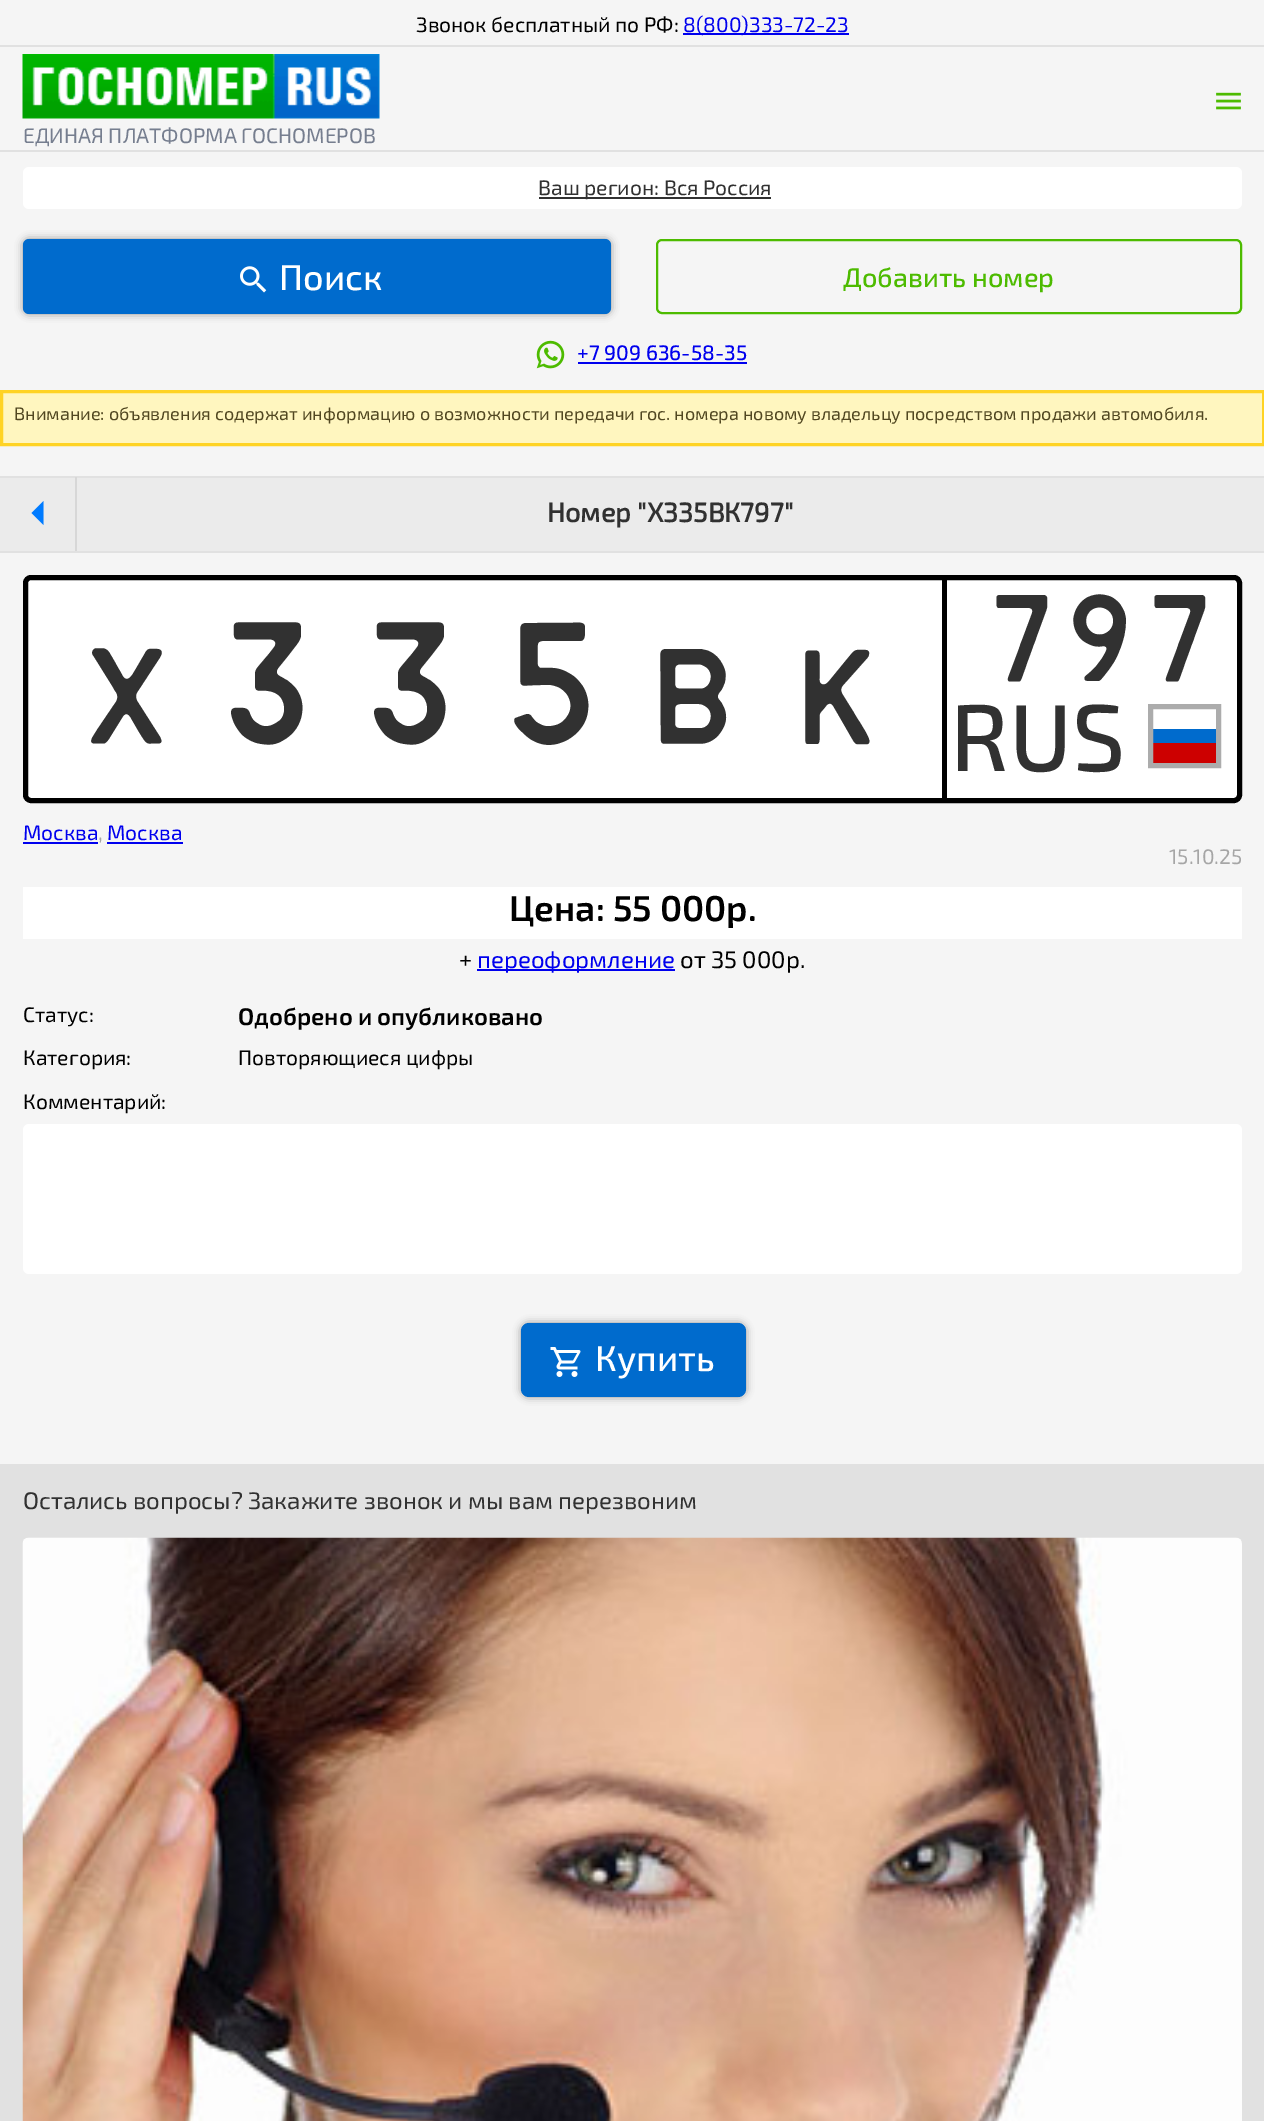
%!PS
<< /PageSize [1264 2121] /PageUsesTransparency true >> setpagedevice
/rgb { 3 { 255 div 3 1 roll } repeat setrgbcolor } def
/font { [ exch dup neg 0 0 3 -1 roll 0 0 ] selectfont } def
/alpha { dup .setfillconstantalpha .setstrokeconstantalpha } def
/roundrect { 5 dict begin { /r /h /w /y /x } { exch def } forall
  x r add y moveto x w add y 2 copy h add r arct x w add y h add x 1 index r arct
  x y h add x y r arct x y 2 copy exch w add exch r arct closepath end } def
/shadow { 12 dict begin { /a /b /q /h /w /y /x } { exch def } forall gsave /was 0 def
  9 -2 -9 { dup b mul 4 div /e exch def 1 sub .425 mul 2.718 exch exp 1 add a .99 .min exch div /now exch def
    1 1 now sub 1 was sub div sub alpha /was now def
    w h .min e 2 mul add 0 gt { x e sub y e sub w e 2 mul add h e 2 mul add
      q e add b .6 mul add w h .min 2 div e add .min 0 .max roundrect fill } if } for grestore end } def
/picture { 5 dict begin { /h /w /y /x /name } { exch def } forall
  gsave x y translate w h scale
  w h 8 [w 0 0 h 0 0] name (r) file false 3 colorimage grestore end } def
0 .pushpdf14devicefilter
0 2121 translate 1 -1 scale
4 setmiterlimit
245 245 245 rgb
0 0 1264 2121 rectfill
[
  [0 45 1264 2 225 225 225]
  [683 33 166 2 0 0 238]
  [0 150 1264 2 225 225 225]
] { aload pop rgb rectfill } forall
(img/1.rgb) 1216 92 25 18 picture
(img/2.rgb) 22 54 358 65 picture
255 255 255 rgb
23 167 1219 42 6 roundrect fill
49 49 49 rgb
539 197 232 2 rectfill
50 50 50 rgb
23 239 588 75 6 4 0.49 shadow
0 107 205 rgb
23 239 588 75 6 roundrect fill
(img/3.rgb) 240 266 27 27 picture
77 187 0 rgb
2 setlinewidth
657 240 584 73 5 roundrect stroke
(img/4.rgb) 536 340 29 29 picture
0 0 238 rgb
578 362 169 2 rectfill
255 246 191 rgb
1.5 391.5 moveto 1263.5 391.5 lineto 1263.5 444.5 lineto 1.5 444.5 lineto closepath gsave fill grestore
255 211 36 rgb
3 setlinewidth
stroke
[
  [0 478 1264 73 235 235 235]
  [0 476 1264 2 225 225 225]
  [0 551 1264 2 225 225 225]
  [75 477 2 74 215 215 215]
] { aload pop rgb rectfill } forall
0 123 255 rgb
43.5 501 moveto 43.5 525 lineto 31.5 513 lineto closepath fill
255 255 255 rgb
25.5 577.5 1214 223 5.5 roundrect gsave fill grestore
0 0 0 rgb
5 setlinewidth
stroke
[
  [942 579 5 219 0 0 0]
  [1153 729 63 14 0 107 205]
  [1153 743 63 20 205 0 0]
] { aload pop rgb rectfill } forall
172 172 172 rgb
1150.5 706.5 68 59 rectstroke
[
  [23 842 75 2 0 0 238]
  [107 842 76 2 0 0 238]
  [23 887 1219 52 255 255 255]
  [477 969 198 2 0 0 238]
] { aload pop rgb rectfill } forall
255 255 255 rgb
23 1124 1219 150 6 roundrect fill
50 50 50 rgb
521 1323 225 74 8 4 0.49 shadow
0 107 205 rgb
521 1323 225 74 8 roundrect fill
(img/5.rgb) 550 1347 31 30 picture
225 225 225 rgb
0 1464 1264 657 rectfill
(img/6.rgb) 22 1537 1220 584 picture
/Exo2-Regular 21 font
0 0 0 rgb
416 32 moveto (Звонок бесплатный по РФ:) show
0 0 238 rgb
683 32 moveto (8\(800\)333-72-23) show
118 126 143 rgb
23 143 moveto (ЕДИНАЯ ПЛАТФОРМА ГОСНОМЕРОВ) show
49 49 49 rgb
538 195 moveto (Ваш регион: Вся Россия) show
/Exo2-Medium 36 font
255 255 255 rgb
279 290 moveto (Поиск) show
/Exo2-Medium 27 font
77 187 0 rgb
843 287 moveto (Добавить номер) show
/Exo2-Medium 21 font
0 0 238 rgb
577 360 moveto (+7 909 636-58-35) show
/Exo2-Regular 18 font
81 71 33 rgb
14 420 moveto (Внимание: объявления содержат информацию о возможности передачи гос. номера новому владельцу посредством продажи автомобиля.) show
/Exo2-Bold 27 font
49 49 49 rgb
547 522 moveto (Номер "Х335ВК797") show
/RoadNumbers-Regular 191 font
82 744 moveto 48 0 (X) ashow
225 744 moveto 48 0 (3) ashow
368 744 moveto 48 0 (3) ashow
509 744 moveto 48 0 (5) ashow
654 744 moveto 48 0 (B) ashow
799 744 moveto 48 0 (K) ashow
/RoadNumbers-Regular 136 font
994 682 moveto 22 0 (797) ashow
/Exo2-Medium 95 font
950 771 moveto (RUS) show
/Exo2-Regular 21 font
0 0 238 rgb
23 840 moveto (Москва) show
166 166 166 rgb
98 840 moveto (,) show
0 0 238 rgb
107 840 moveto (Москва) show
166 166 166 rgb
1169 864 moveto (15.10.25) show
/Exo2-SemiBold 36 font
0 0 0 rgb
509 921 moveto (Цена: 55 000р.) show
/Exo2-Regular 24 font
459 968 moveto (+) show
0 0 238 rgb
477 968 moveto (переоформление) show
0 0 0 rgb
680 968 moveto (от 35 000р.) show
/Exo2-Regular 21 font
23 1022 moveto (Статус:) show
/Exo2-SemiBold 24 font
238 1025 moveto (Одобрено и опубликовано) show
/Exo2-Regular 21 font
[
  [(Категория:) 23 1065]
  [(Повторяющиеся цифры) 238 1065]
  [(Комментарий:) 23 1109]
] { aload pop moveto show } forall
/Exo2-Medium 36 font
255 255 255 rgb
595 1371 moveto (Купить) show
/Exo2-Regular 24 font
49 49 49 rgb
23 1509 moveto (Остались вопросы? Закажите звонок и мы вам перезвоним) show
.poppdf14devicefilter showpage
